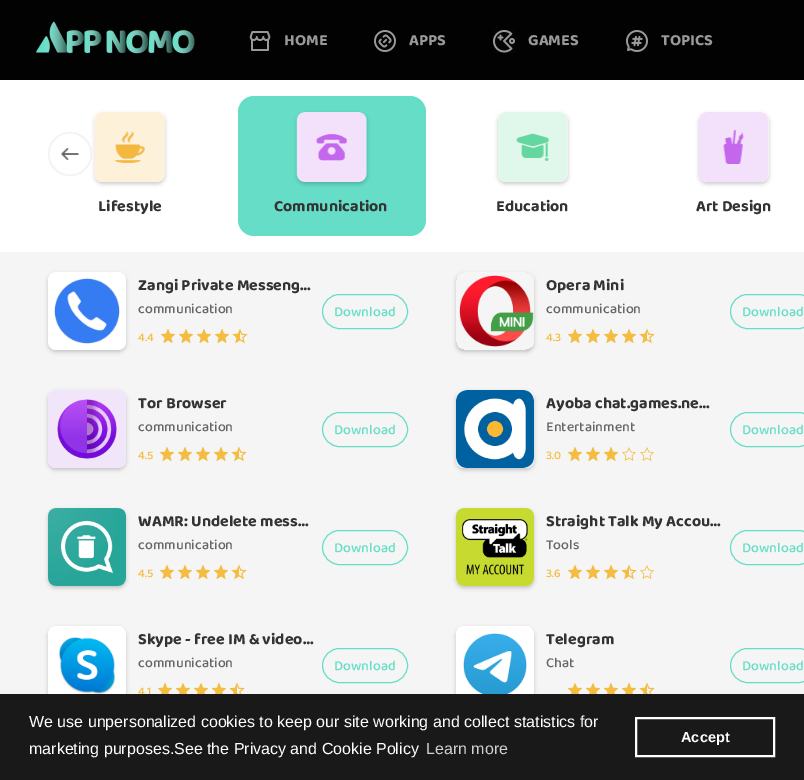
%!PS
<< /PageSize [804 780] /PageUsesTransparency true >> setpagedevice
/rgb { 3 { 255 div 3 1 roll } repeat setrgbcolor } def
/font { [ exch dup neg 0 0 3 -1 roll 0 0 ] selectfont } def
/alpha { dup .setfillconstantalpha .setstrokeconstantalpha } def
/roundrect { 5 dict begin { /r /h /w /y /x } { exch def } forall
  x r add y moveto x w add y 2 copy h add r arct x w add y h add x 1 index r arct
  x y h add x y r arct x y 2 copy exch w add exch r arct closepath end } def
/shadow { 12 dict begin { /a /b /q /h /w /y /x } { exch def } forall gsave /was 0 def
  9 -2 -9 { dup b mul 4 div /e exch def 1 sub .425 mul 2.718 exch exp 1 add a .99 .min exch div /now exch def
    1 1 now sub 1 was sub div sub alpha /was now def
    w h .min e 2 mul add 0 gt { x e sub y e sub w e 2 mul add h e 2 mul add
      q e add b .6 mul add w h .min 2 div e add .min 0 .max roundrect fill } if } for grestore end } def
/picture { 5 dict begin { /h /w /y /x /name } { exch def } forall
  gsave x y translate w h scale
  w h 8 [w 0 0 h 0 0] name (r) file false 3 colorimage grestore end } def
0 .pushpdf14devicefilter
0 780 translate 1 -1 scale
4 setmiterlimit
245 245 245 rgb
0 0 804 780 rectfill
2 2 2 rgb
0 0 804 80 rectfill
(img/1.rgb) 36 21 159 33 picture
(img/2.rgb) 249 31 22 20 picture
(img/3.rgb) 374 30 22 22 picture
(img/4.rgb) 493 30 22 23 picture
(img/5.rgb) 626 30 22 22 picture
255 255 255 rgb
0 80 804 172 rectfill
0 0 0 rgb
95 114 70 70 8 2 0.2 shadow
(img/6.rgb) 48 132 44 44 picture
(img/7.rgb) 94 112 71 70 picture
102 222 199 rgb
238 96 188 140 16 roundrect fill
0 0 0 rgb
297 114 70 70 8 2 0.2 shadow
(img/8.rgb) 296 112 71 70 picture
498 114 70 70 8 2 0.2 shadow
(img/9.rgb) 498 112 70 70 picture
699 114 70 70 8 2 0.2 shadow
(img/10.rgb) 699 112 70 70 picture
48 274 78 78 8 2 0.2 shadow
(img/11.rgb) 48 272 78 78 picture
(img/12.rgb) 161 329 14 14 picture
(img/12.rgb) 179 329 14 14 picture
(img/12.rgb) 197 329 14 14 picture
(img/12.rgb) 215 329 14 14 picture
(img/13.rgb) 232 328 16 16 picture
102 222 199 rgb
322.5 294.5 85 34 17 roundrect stroke
gsave
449 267 moveto 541 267 lineto 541 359 lineto 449 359 lineto closepath 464 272 moveto 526 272 lineto 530.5 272 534 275.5 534 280 curveto 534 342 lineto 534 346.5 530.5 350 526 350 curveto 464 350 lineto 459.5 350 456 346.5 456 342 curveto 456 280 lineto 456 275.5 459.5 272 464 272 curveto closepath eoclip newpath
0 0 0 rgb
456 274 78 78 8 2 0.2 shadow
grestore
(img/14.rgb) 459 275 75 72 picture
(img/12.rgb) 568 329 14 14 picture
(img/12.rgb) 586 329 14 14 picture
(img/12.rgb) 604 329 14 14 picture
(img/12.rgb) 622 329 14 14 picture
(img/13.rgb) 639 328 16 16 picture
730.5 294.5 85 34 17 roundrect stroke
0 0 0 rgb
48 392 78 78 8 2 0.2 shadow
(img/15.rgb) 48 390 78 78 picture
(img/12.rgb) 160 447 14 14 picture
(img/12.rgb) 178 447 14 14 picture
(img/12.rgb) 196 447 14 14 picture
(img/12.rgb) 214 447 14 14 picture
(img/13.rgb) 231 446 16 16 picture
102 222 199 rgb
322.5 412.5 85 34 17 roundrect stroke
0 0 0 rgb
456 392 78 78 8 2 0.2 shadow
(img/16.rgb) 456 390 78 78 picture
(img/12.rgb) 568 447 14 14 picture
(img/12.rgb) 586 447 14 14 picture
(img/12.rgb) 604 447 14 14 picture
(img/17.rgb) 622 447 14 14 picture
(img/17.rgb) 640 447 14 14 picture
102 222 199 rgb
730.5 412.5 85 34 17 roundrect stroke
0 0 0 rgb
48 510 78 78 8 2 0.2 shadow
(img/18.rgb) 48 508 78 78 picture
(img/12.rgb) 160 565 14 14 picture
(img/12.rgb) 178 565 14 14 picture
(img/12.rgb) 196 565 14 14 picture
(img/12.rgb) 214 565 14 14 picture
(img/13.rgb) 231 564 16 16 picture
102 222 199 rgb
322.5 530.5 85 34 17 roundrect stroke
0 0 0 rgb
456 510 78 78 8 2 0.2 shadow
(img/19.rgb) 456 508 78 78 picture
(img/12.rgb) 568 565 14 14 picture
(img/12.rgb) 586 565 14 14 picture
(img/12.rgb) 604 565 14 14 picture
(img/13.rgb) 621 564 16 16 picture
(img/17.rgb) 640 565 14 14 picture
102 222 199 rgb
730.5 530.5 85 34 17 roundrect stroke
0 0 0 rgb
48 628 78 78 8 2 0.2 shadow
(img/20.rgb) 48 626 78 68 picture
(img/21.rgb) 158 683 14 11 picture
(img/21.rgb) 176 683 14 11 picture
(img/21.rgb) 194 683 14 11 picture
(img/21.rgb) 212 683 14 11 picture
(img/22.rgb) 229 682 16 12 picture
102 222 199 rgb
322.5 648.5 85 34 17 roundrect stroke
0 0 0 rgb
456 628 78 78 8 2 0.2 shadow
(img/23.rgb) 456 626 78 68 picture
(img/21.rgb) 568 683 14 11 picture
(img/21.rgb) 586 683 14 11 picture
(img/21.rgb) 604 683 14 11 picture
(img/21.rgb) 622 683 14 11 picture
(img/22.rgb) 639 682 16 12 picture
102 222 199 rgb
730.5 648.5 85 34 17 roundrect stroke
/Baloo2-Bold 16 font
153 153 153 rgb
[
  [(HOME) 284 45]
  [(APPS) 409 45]
  [(GAMES) 528 45]
  [(TOPICS) 661 45]
] { aload pop moveto show } forall
51 51 51 rgb
[
  [(Lifestyle) 98 211]
  [(Communication) 274 211]
  [(Education) 496 211]
  [(Art Design) 696 211]
  [(Zangi Private Messeng…) 138 290]
] { aload pop moveto show } forall
/Baloo2-Medium 14 font
102 102 102 rgb
138 313 moveto (communication) show
/Baloo2-Medium 12 font
244 189 65 rgb
138 341 moveto (4.4) show
/Baloo2-Medium 14 font
102 222 199 rgb
334 316 moveto (Download) show
/Baloo2-Bold 16 font
51 51 51 rgb
546 290 moveto (Opera Mini) show
/Baloo2-Medium 14 font
102 102 102 rgb
546 313 moveto (communication) show
/Baloo2-Medium 12 font
244 189 65 rgb
546 341 moveto (4.3) show
/Baloo2-Medium 14 font
102 222 199 rgb
742 316 moveto (Download) show
/Baloo2-Bold 16 font
51 51 51 rgb
138 408 moveto (Tor Browser) show
/Baloo2-Medium 14 font
102 102 102 rgb
138 431 moveto (communication) show
/Baloo2-Medium 12 font
244 189 65 rgb
138 459 moveto (4.5) show
/Baloo2-Medium 14 font
102 222 199 rgb
334 434 moveto (Download) show
/Baloo2-Bold 16 font
51 51 51 rgb
546 408 moveto (Ayoba chat.games.ne…) show
/Baloo2-Medium 14 font
102 102 102 rgb
546 431 moveto (Entertainment) show
/Baloo2-Medium 12 font
244 189 65 rgb
546 459 moveto (3.0) show
/Baloo2-Medium 14 font
102 222 199 rgb
742 434 moveto (Download) show
/Baloo2-Bold 16 font
51 51 51 rgb
138 526 moveto (WAMR: Undelete mess…) show
/Baloo2-Medium 14 font
102 102 102 rgb
138 549 moveto (communication) show
/Baloo2-Medium 12 font
244 189 65 rgb
138 577 moveto (4.5) show
/Baloo2-Medium 14 font
102 222 199 rgb
334 552 moveto (Download) show
/Baloo2-Bold 16 font
51 51 51 rgb
546 526 moveto (Straight Talk My Accou…) show
/Baloo2-Medium 14 font
102 102 102 rgb
546 549 moveto (Tools) show
/Baloo2-Medium 12 font
244 189 65 rgb
546 577 moveto (3.6) show
/Baloo2-Medium 14 font
102 222 199 rgb
742 552 moveto (Download) show
/Baloo2-Bold 16 font
51 51 51 rgb
138 644 moveto (Skype - free IM & video…) show
/Baloo2-Medium 14 font
102 102 102 rgb
138 667 moveto (communication) show
/Baloo2-Medium 12 font
244 189 65 rgb
138 695 moveto (4.1) show
/Baloo2-Medium 14 font
102 222 199 rgb
334 670 moveto (Download) show
/Baloo2-Bold 16 font
51 51 51 rgb
546 644 moveto (Telegram) show
/Baloo2-Medium 14 font
102 102 102 rgb
546 667 moveto (Chat) show
102 222 199 rgb
742 670 moveto (Download) show
25 25 25 rgb
0 694 804 86 rectfill
/LiberationSans-Regular 16 font
255 255 255 rgb
29 727 moveto (We use unpersonalized cookies to keep our site working and collect statistics for) show
29 754 moveto (marketing purposes.See the Privacy and Cookie Policy) show
209 209 209 rgb
426 754 moveto (Learn more) show
255 255 255 rgb
2 setlinewidth
636 718 138 38 rectstroke
/LiberationSans-Bold 14.5 font
681 742 moveto (Accept) show
.poppdf14devicefilter showpage
